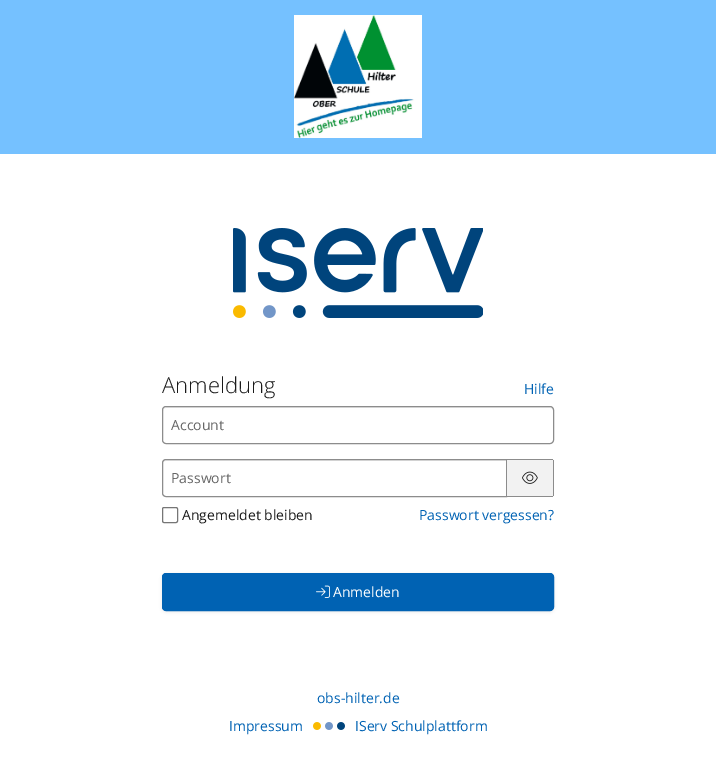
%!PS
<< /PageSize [716 768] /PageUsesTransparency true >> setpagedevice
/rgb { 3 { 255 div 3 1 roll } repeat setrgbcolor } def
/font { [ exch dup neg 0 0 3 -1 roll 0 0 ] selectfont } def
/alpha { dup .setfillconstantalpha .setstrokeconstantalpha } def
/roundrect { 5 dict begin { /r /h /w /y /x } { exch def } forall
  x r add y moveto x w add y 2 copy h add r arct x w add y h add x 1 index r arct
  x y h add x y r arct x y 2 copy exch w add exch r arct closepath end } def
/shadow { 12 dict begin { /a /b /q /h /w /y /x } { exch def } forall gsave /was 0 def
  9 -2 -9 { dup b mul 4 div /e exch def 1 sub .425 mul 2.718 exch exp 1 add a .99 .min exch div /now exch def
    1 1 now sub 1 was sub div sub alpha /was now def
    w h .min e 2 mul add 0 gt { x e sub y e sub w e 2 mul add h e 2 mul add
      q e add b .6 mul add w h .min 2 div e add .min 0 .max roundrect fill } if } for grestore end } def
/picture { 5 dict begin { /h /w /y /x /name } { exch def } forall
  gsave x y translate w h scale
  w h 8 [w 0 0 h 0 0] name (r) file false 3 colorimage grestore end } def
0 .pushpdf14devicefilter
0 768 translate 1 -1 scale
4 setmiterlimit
255 255 255 rgb
0 0 716 768 rectfill
117 193 255 rgb
0 0 716 154 rectfill
(img/1.rgb) 294 15 128 123 picture
(img/2.rgb) 233 228 250 90 picture
236 236 236 rgb
166 408 moveto 550 408 lineto 552 408 553 409 553 411 curveto 553 409 552 407 550 407 curveto 166 407 lineto 164 408 lineto 163 411 lineto 163 409 164 408 166 408 curveto closepath fill
140 140 140 rgb
162.5 406.5 391 37 3.5 roundrect stroke
236 236 236 rgb
166 461 moveto 506 461 lineto 506 460 lineto 166 460 lineto 164 460 163 461 163 463 curveto 163 464 lineto 163 462 164 461 166 461 curveto closepath fill
140 140 140 rgb
166 459.5 moveto 506.5 459.5 lineto 506.5 496.5 lineto 166 496.5 lineto 164 496.5 162.5 495 162.5 493 curveto 162.5 463 lineto 162.5 461 164 459.5 166 459.5 curveto closepath stroke
242 242 242 rgb
507 459 moveto 552 459 lineto 553 459 554 460 554 461 curveto 554 495 lineto 554 496 553 497 552 497 curveto 507 497 lineto closepath fill
[
  [507 459 46 1 140 140 140]
  [553 460 1 36 140 140 140]
  [507 496 46 1 140 140 140]
] { aload pop rgb rectfill } forall
(img/3.rgb) 522 471 16 13 picture
118 118 118 rgb
162.5 507.5 15 15 1.5 roundrect stroke
0 0 0 rgb
162 574 392 38 4 1.5 0.08 shadow
0 98 179 rgb
162.5 573.5 391 37 3.5 roundrect gsave fill grestore
stroke
(img/4.rgb) 316 585 14 13 picture
(img/5.rgb) 313 722 8 8 picture
(img/6.rgb) 325 722 8 8 picture
(img/7.rgb) 337 722 8 8 picture
/OpenSans-Light 22 font
26 26 26 rgb
162 393 moveto (Anmeldung) show
/OpenSans-Regular 14 font
0 98 179 rgb
524 394 moveto (Hilfe) show
102 102 102 rgb
171 430 moveto (Account) show
171 483 moveto (Passwort) show
26 26 26 rgb
182 520 moveto (Angemeldet bleiben) show
0 98 179 rgb
419 520 moveto (Passwort vergessen?) show
255 255 255 rgb
333 597 moveto (Anmelden) show
0 98 179 rgb
[
  [(obs-hilter.de) 317 703]
  [(Impressum) 229 731]
  [(IServ Schulplattform) 355 731]
] { aload pop moveto show } forall
.poppdf14devicefilter showpage
